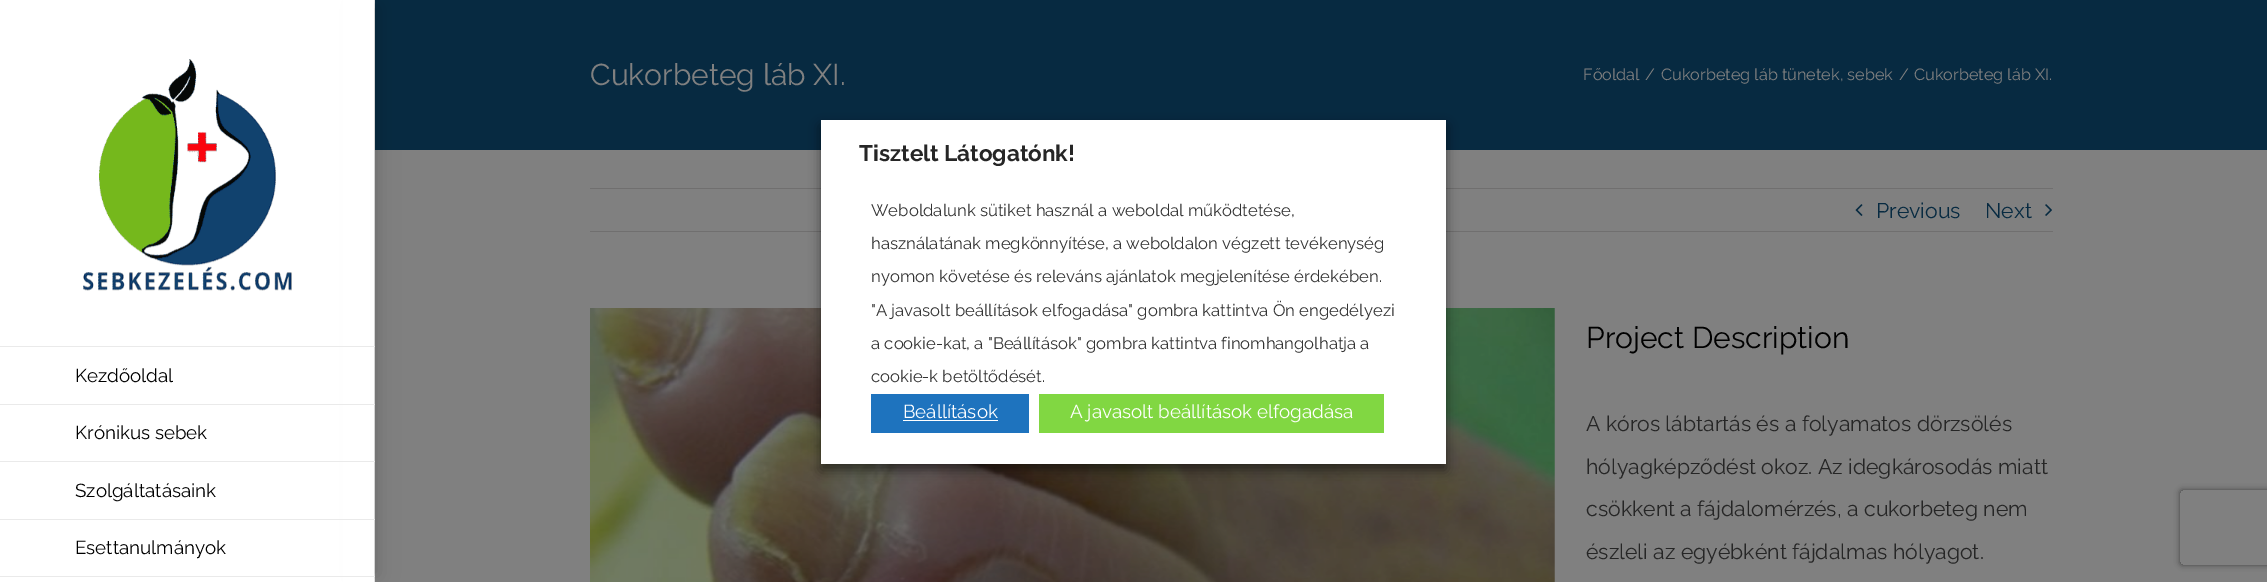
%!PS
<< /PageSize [2267 582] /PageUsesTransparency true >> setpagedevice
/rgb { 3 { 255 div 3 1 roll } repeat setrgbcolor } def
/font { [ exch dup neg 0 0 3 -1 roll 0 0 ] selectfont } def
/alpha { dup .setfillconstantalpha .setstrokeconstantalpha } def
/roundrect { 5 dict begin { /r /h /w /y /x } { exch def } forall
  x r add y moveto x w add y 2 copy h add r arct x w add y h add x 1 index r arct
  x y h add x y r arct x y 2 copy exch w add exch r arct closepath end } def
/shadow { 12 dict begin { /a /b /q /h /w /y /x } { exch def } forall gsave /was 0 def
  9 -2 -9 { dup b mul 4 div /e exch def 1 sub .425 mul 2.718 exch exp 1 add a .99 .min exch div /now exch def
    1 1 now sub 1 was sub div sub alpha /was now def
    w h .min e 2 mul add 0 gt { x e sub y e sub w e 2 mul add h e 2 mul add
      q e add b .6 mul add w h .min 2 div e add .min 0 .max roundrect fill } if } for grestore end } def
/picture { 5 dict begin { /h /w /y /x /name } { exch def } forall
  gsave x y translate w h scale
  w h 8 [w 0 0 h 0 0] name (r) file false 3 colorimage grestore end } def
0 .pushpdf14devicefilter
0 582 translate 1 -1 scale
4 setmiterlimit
128 128 128 rgb
0 0 2267 582 rectfill
[
  [375 0 1892 150 7 42 65]
  [0 0 374 582 255 255 255]
  [374 0 1 582 234 234 234]
] { aload pop rgb rectfill } forall
gsave
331 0 moveto 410 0 lineto 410 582 lineto 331 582 lineto closepath 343 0 moveto 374 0 lineto 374 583 lineto 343 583 lineto closepath eoclip newpath
0 0 0 rgb
361 6 19 570 0 9.5 0.14 shadow
grestore
(img/1.rgb) 83 59 209 232 picture
[
  [0 346 375 1 234 234 234]
  [0 404 375 1 234 234 234]
  [0 461 375 1 234 234 234]
  [0 519 375 1 234 234 234]
  [0 576 375 1 234 234 234]
  [590 188 1463 1 112 111 111]
  [590 231 1463 1 112 111 111]
] { aload pop rgb rectfill } forall
(img/2.rgb) 1855 204 8 12 picture
(img/3.rgb) 2045 204 7 12 picture
(img/4.rgb) 590 308 965 274 picture
0 0 0 rgb
821 126 625 344 0 6 0.5 shadow
[
  [821 120 625 344 255 255 255]
  [871 394 158 39 30 115 190]
  [903 420 95 1 255 255 255]
  [1039 394 345 39 129 215 66]
] { aload pop rgb rectfill } forall
gsave
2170 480 moveto 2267 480 lineto 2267 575 lineto 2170 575 lineto closepath 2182.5 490 moveto 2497.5 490 lineto 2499 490 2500 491 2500 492.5 curveto 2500 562.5 lineto 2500 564 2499 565 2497.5 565 curveto 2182.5 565 lineto 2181 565 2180 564 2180 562.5 curveto 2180 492.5 lineto 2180 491 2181 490 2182.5 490 curveto closepath eoclip newpath
64 64 64 rgb
2180 490 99 75 2.5 3 1 shadow
grestore
/Raleway-Regular 30 font
128 128 128 rgb
590 85 moveto (Cukorbeteg láb XI.) show
/Raleway-Regular 16.25 font
[
  [(Főoldal) 1583 80]
  [(/) 1645 80]
  [(Cukorbeteg láb tünetek, sebek) 1661 80]
  [(/) 1899 80]
  [(Cukorbeteg láb XI.) 1914 80]
] { aload pop moveto show } forall
/Raleway-Regular 18.75 font
0 0 0 rgb
[
  [(Kezdőoldal) 75 382]
  [(Krónikus sebek) 75 439]
  [(Szolgáltatásaink) 75 497]
  [(Esettanulmányok) 75 554]
] { aload pop moveto show } forall
/Raleway-Regular 21.25 font
7 42 65 rgb
1876 218 moveto (Previous) show
1985 218 moveto (Next) show
/Raleway-Regular 30 font
0 0 0 rgb
1586 348 moveto (Project Description) show
/Raleway-Regular 21.25 font
38 38 38 rgb
[
  [(A kóros lábtartás és a folyamatos dörzsölés) 1586 431]
  [(hólyagképződést okoz. Az idegkárosodás miatt) 1586 474]
  [(csökkent a fájdalomérzés, a cukorbeteg nem) 1586 516]
  [(észleli az egyébként fájdalmas hólyagot.) 1586 559]
] { aload pop moveto show } forall
/Raleway-Bold 22.5 font
859 161 moveto (Tisztelt Látogatónk!) show
/Raleway-Regular 16.7 font
51 51 51 rgb
[
  [(Weboldalunk sütiket használ a weboldal működtetése,) 871 216]
  [(használatának megkönnyítése, a weboldalon végzett tevékenység) 871 249]
  [(nyomon követése és releváns ajánlatok megjelenítése érdekében.) 871 282]
  [("A javasolt beállítások elfogadása" gombra kattintva Ön engedélyezi) 871 316]
  [(a cookie-kat, a "Beállítások" gombra kattintva finomhangolhatja a) 871 349]
  [(cookie-k betöltődését.) 871 382]
] { aload pop moveto show } forall
/Raleway-Regular 18.75 font
255 255 255 rgb
903 418 moveto (Beállítások) show
1070 418 moveto (A javasolt beállítások elfogadása) show
.poppdf14devicefilter showpage
